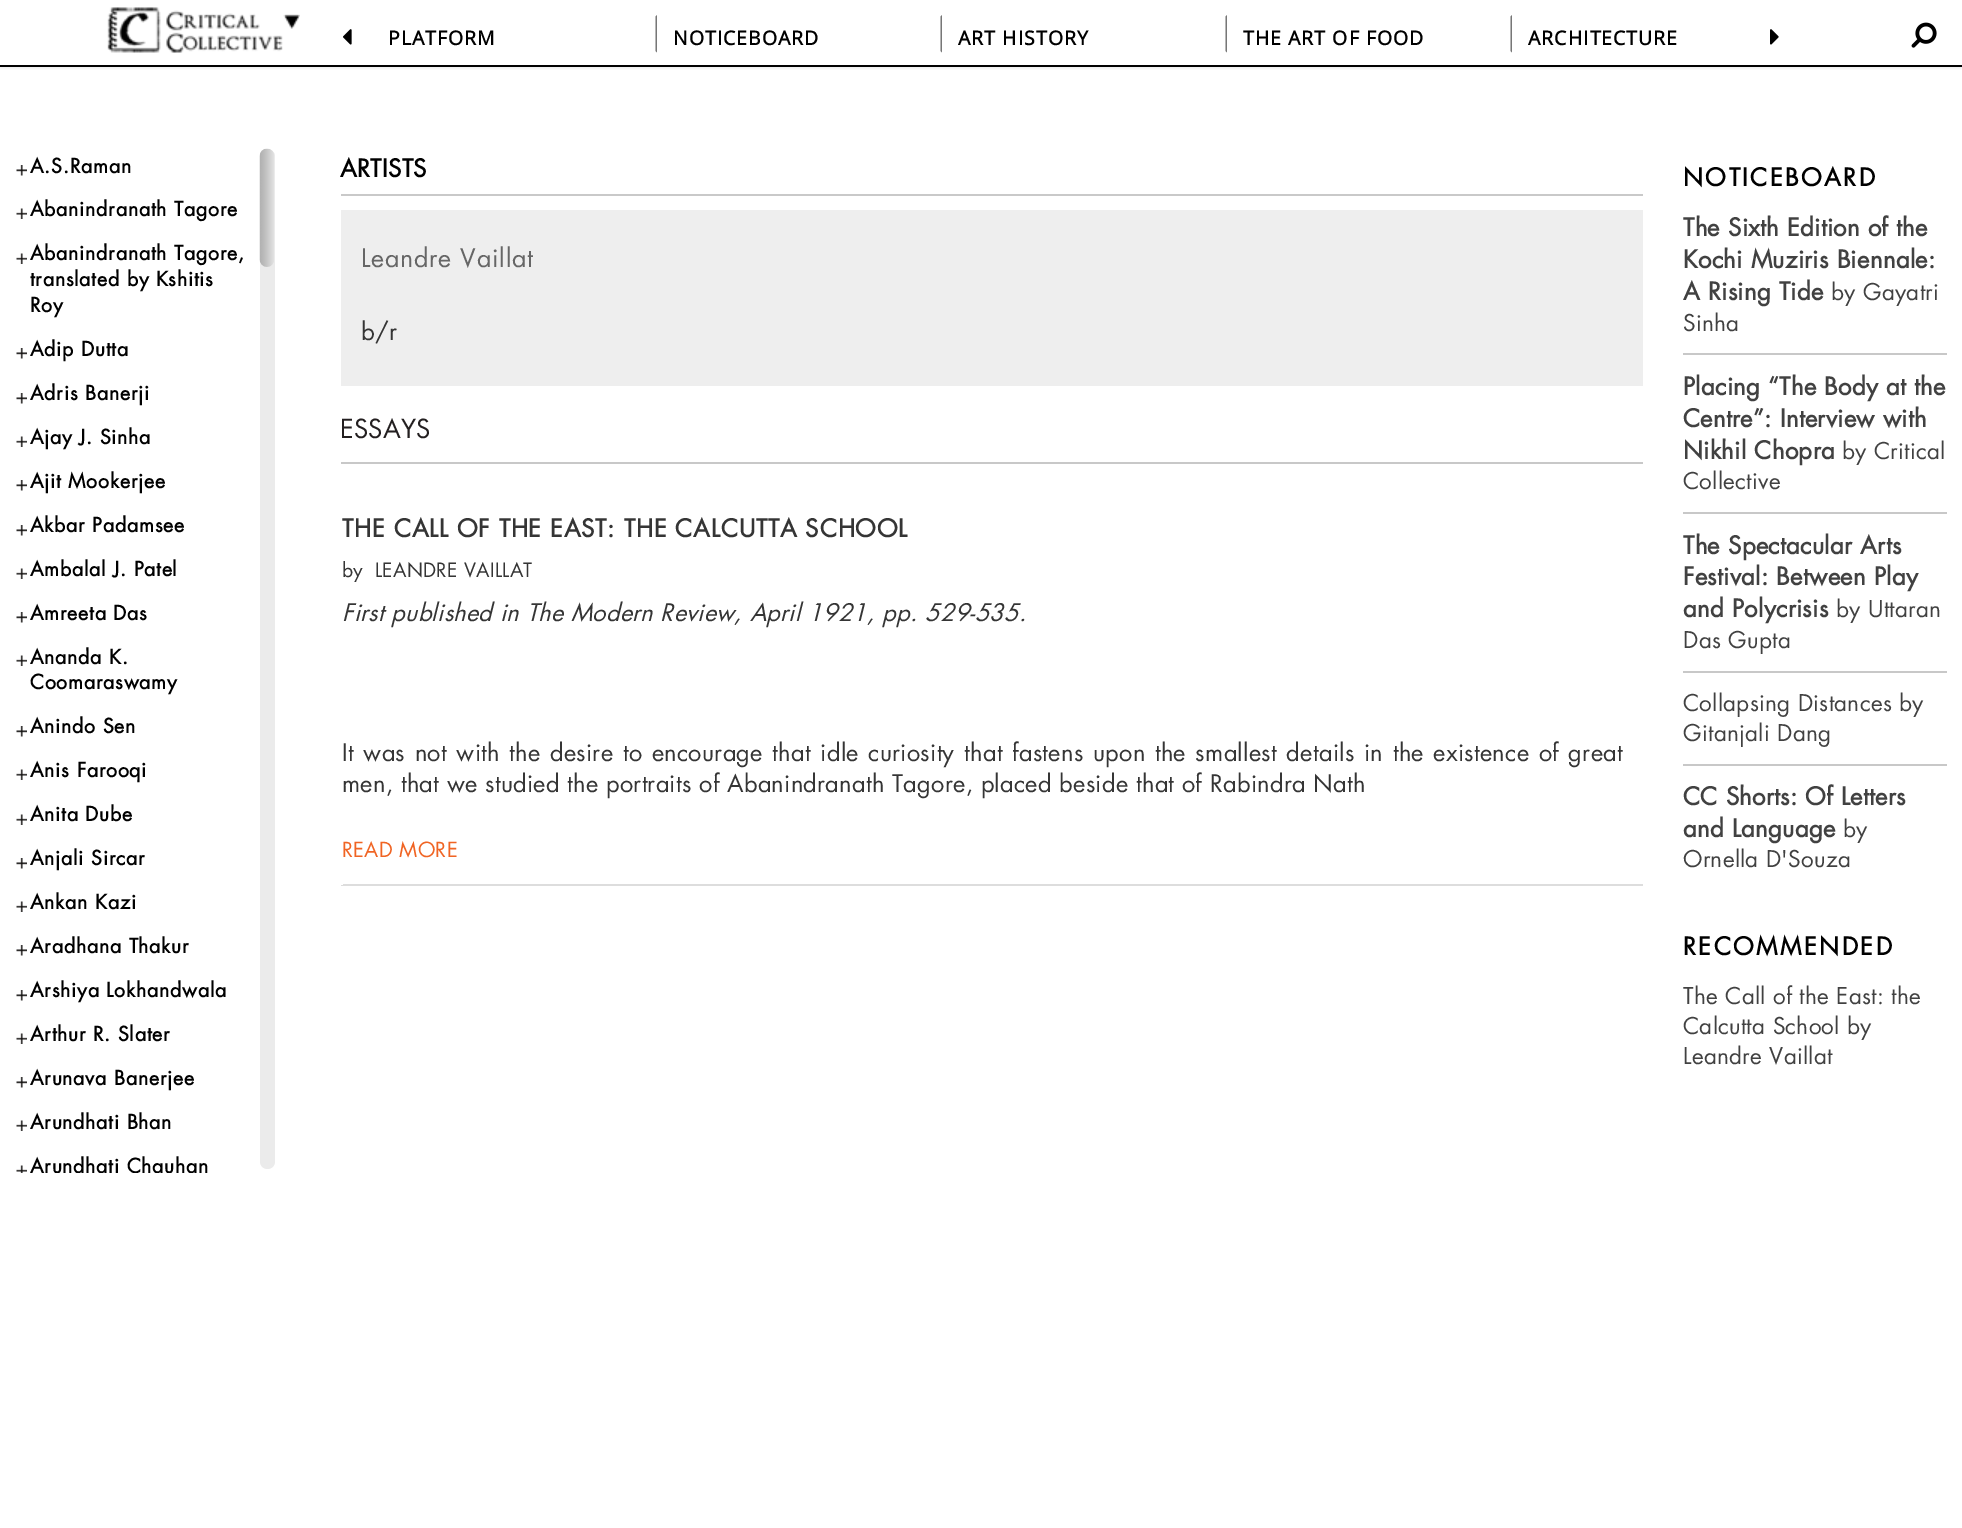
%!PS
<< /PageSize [1962 1528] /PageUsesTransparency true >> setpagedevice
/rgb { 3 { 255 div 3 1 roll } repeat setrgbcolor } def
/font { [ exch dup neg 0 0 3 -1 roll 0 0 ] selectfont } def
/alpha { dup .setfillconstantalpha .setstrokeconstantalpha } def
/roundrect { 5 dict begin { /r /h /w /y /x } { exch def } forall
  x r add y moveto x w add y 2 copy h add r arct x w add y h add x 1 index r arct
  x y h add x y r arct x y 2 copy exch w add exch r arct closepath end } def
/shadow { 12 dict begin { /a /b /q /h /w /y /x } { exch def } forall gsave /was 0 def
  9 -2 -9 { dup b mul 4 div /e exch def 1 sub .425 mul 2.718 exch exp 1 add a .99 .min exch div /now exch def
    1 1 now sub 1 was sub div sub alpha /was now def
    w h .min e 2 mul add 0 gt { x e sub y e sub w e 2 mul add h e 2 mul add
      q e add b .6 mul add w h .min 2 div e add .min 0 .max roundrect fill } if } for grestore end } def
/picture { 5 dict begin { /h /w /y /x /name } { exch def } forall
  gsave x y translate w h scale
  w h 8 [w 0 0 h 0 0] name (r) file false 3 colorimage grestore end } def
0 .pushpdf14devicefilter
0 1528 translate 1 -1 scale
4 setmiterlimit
255 255 255 rgb
0 0 1962 1528 rectfill
gsave
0 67 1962 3 rectclip
0 0 0 rgb
0 2 1962 66 0 2 0.1 shadow
grestore
0 0 0 rgb
0 65 1962 2 rectfill
(img/1.rgb) 107 7 193 46 picture
(img/2.rgb) 343 29 9 16 picture
119 119 119 rgb
657 15 moveto 657 52.5 lineto 655.5 51 lineto 655.5 16.5 lineto closepath fill
942 15 moveto 942 52.5 lineto 940.5 51 lineto 940.5 16.5 lineto closepath fill
1227 15 moveto 1227 52.5 lineto 1225.5 51 lineto 1225.5 16.5 lineto closepath fill
1512 15 moveto 1512 52.5 lineto 1510.5 51 lineto 1510.5 16.5 lineto closepath fill
(img/3.rgb) 1770 29 9 16 picture
(img/4.rgb) 1911 22 26 26 picture
(img/5.rgb) 16 165 11 11 picture
(img/6.rgb) 16 208 11 11 picture
(img/6.rgb) 16 253 11 11 picture
(img/5.rgb) 16 348 11 11 picture
(img/5.rgb) 16 393 11 11 picture
(img/6.rgb) 16 436 11 11 picture
(img/5.rgb) 16 480 11 11 picture
(img/5.rgb) 16 525 11 11 picture
(img/6.rgb) 16 568 11 11 picture
(img/5.rgb) 16 612 11 11 picture
(img/6.rgb) 16 655 11 11 picture
(img/5.rgb) 16 726 11 11 picture
(img/6.rgb) 16 769 11 11 picture
(img/6.rgb) 16 814 11 11 picture
(img/5.rgb) 16 858 11 11 picture
(img/6.rgb) 16 901 11 11 picture
(img/5.rgb) 16 945 11 11 picture
(img/5.rgb) 16 990 11 11 picture
(img/6.rgb) 16 1033 11 11 picture
(img/5.rgb) 16 1077 11 11 picture
(img/6.rgb) 16 1120 11 11 picture
(img/7.rgb) 16 1165 11 8 picture
[
  [341 194 1302 2 201 201 201]
  [341 210 1302 176 238 238 238]
  [341 462 1302 2 200 200 200]
  [341 884 1302 2 221 221 221]
  [341 884 2 1 255 255 255]
  [1683 353 264 2 200 200 200]
  [1683 512 264 2 200 200 200]
  [1683 671 264 2 200 200 200]
  [1683 764 264 2 200 200 200]
] { aload pop rgb rectfill } forall
235 235 235 rgb
260 149 15 1020 7.5 roundrect fill
(img/8.rgb) 259 148 15 119 picture
/OpenSans-Bold 19.5 font
0 0 0 rgb
388 45 moveto 1 0 (PLATFORM) ashow
673 45 moveto 1 0 (NOTICEBOARD) ashow
958 45 moveto 1 0 (ART HISTORY) ashow
1243 45 moveto 1 0 (THE ART OF FOOD) ashow
1528 45 moveto 1 0 (ARCHITECTURE) ashow
/Futura-Bold 19.5 font
30 173 moveto 0.75 0 (A.S.Raman) ashow
30 216 moveto 0.75 0 (Abanindranath Tagore) ashow
30 260 moveto 0.75 0 (Abanindranath Tagore,) ashow
30 286 moveto 0.75 0 (translated by Kshitis) ashow
30 312 moveto 0.75 0 (Roy) ashow
30 356 moveto 0.75 0 (Adip Dutta) ashow
30 400 moveto 0.75 0 (Adris Banerji) ashow
30 444 moveto 0.75 0 (Ajay J. Sinha) ashow
30 488 moveto 0.75 0 (Ajit Mookerjee) ashow
30 532 moveto 0.75 0 (Akbar Padamsee) ashow
30 576 moveto 0.75 0 (Ambalal J. Patel) ashow
30 620 moveto 0.75 0 (Amreeta Das) ashow
30 664 moveto 0.75 0 (Ananda K.) ashow
30 689 moveto 0.75 0 (Coomaraswamy) ashow
30 733 moveto 0.75 0 (Anindo Sen) ashow
30 777 moveto 0.75 0 (Anis Farooqi) ashow
30 821 moveto 0.75 0 (Anita Dube) ashow
30 865 moveto 0.75 0 (Anjali Sircar) ashow
30 909 moveto 0.75 0 (Ankan Kazi) ashow
30 953 moveto 0.75 0 (Aradhana Thakur) ashow
30 997 moveto 0.75 0 (Arshiya Lokhandwala) ashow
30 1041 moveto 0.75 0 (Arthur R. Slater) ashow
30 1085 moveto 0.75 0 (Arunava Banerjee) ashow
30 1129 moveto 0.75 0 (Arundhati Bhan) ashow
gsave
15 144 264 1029 rectclip
30 1173 moveto 0.75 0 (Arundhati Chauhan) ashow
grestore
/Futura-Bold 24 font
340 177 moveto 0.27 0 (ARTISTS) ashow
/Futura-Regular 25 font
102 102 102 rgb
361 267 moveto 0.75 0 (Leandre Vaillat) ashow
/Futura-Regular 24 font
53 53 53 rgb
361 340 moveto 0.27 0 (b/r) ashow
/Futura-Regular 25.5 font
35 31 32 rgb
340 438 moveto 0.27 0 (ESSAYS) ashow
/Futura-Bold 24 font
53 53 53 rgb
342 537 moveto 0.75 0 (THE CALL OF THE EAST: THE CALCUTTA SCHOOL) ashow
/Futura-Regular 19.25 font
342 577 moveto 0.27 0 (by) ashow
375 577 moveto 0.27 0 (LEANDRE VAILLAT) ashow
/Futura-Italic 23.6 font
342 621 moveto 0.27 0 (First published in The Modern Review, April 1921, pp. 529-535.) ashow
/Futura-Regular 23.6 font
342 761 moveto 2 0 32 0.27 0 (It was not with the desire to encourage that idle curiosity that fastens upon the smallest details in the existence of great) awidthshow
342 792 moveto 0.27 0 (men, that we studied the portraits of Abanindranath Tagore, placed beside that of Rabindra Nath) ashow
/Futura-Regular 20.25 font
240 100 35 rgb
342 857 moveto 0.27 0 (READ MORE) ashow
/Futura-Bold 24 font
0 0 0 rgb
1683 186 moveto 2.4 0 (NOTICEBOARD) ashow
65 65 65 rgb
1683 236 moveto 0.27 0 (The Sixth Edition of the) ashow
1683 268 moveto 0.27 0 (Kochi Muziris Biennale:) ashow
1683 300 moveto 0.27 0 (A Rising Tide) ashow
/Futura-Regular 22.5 font
1831 300 moveto 0.27 0 (by Gayatri) ashow
1683 331 moveto 0.27 0 (Sinha) ashow
/Futura-Bold 24 font
1683 395 moveto 0.27 0 (Placing “The Body at the) ashow
1683 427 moveto 0.27 0 (Centre”: Interview with) ashow
1683 459 moveto 0.27 0 (Nikhil Chopra) ashow
/Futura-Regular 22.5 font
1842 459 moveto 0.27 0 (by Critical) ashow
1683 489 moveto 0.27 0 (Collective) ashow
/Futura-Bold 24 font
1683 554 moveto 0.27 0 (The Spectacular Arts) ashow
1683 585 moveto 0.27 0 (Festival: Between Play) ashow
1683 617 moveto 0.27 0 (and Polycrisis) ashow
/Futura-Regular 22.5 font
1836 617 moveto 0.27 0 (by Uttaran) ashow
1683 648 moveto 0.27 0 (Das Gupta) ashow
1683 711 moveto 0.27 0 (Collapsing Distances by) ashow
1683 741 moveto 0.27 0 (Gitanjali Dang) ashow
/Futura-Bold 24 font
1683 805 moveto 0.27 0 (CC Shorts: Of Letters) ashow
1683 837 moveto 0.27 0 (and Language) ashow
/Futura-Regular 22.5 font
1843 837 moveto 0.27 0 (by) ashow
1683 867 moveto 0.27 0 (Ornella D'Souza) ashow
/Futura-Bold 24 font
0 0 0 rgb
1683 955 moveto 2.4 0 (RECOMMENDED) ashow
/Futura-Regular 22.5 font
65 65 65 rgb
1683 1004 moveto 0.27 0 (The Call of the East: the) ashow
1683 1034 moveto 0.27 0 (Calcutta School by) ashow
1683 1064 moveto 0.27 0 (Leandre Vaillat) ashow
.poppdf14devicefilter showpage
